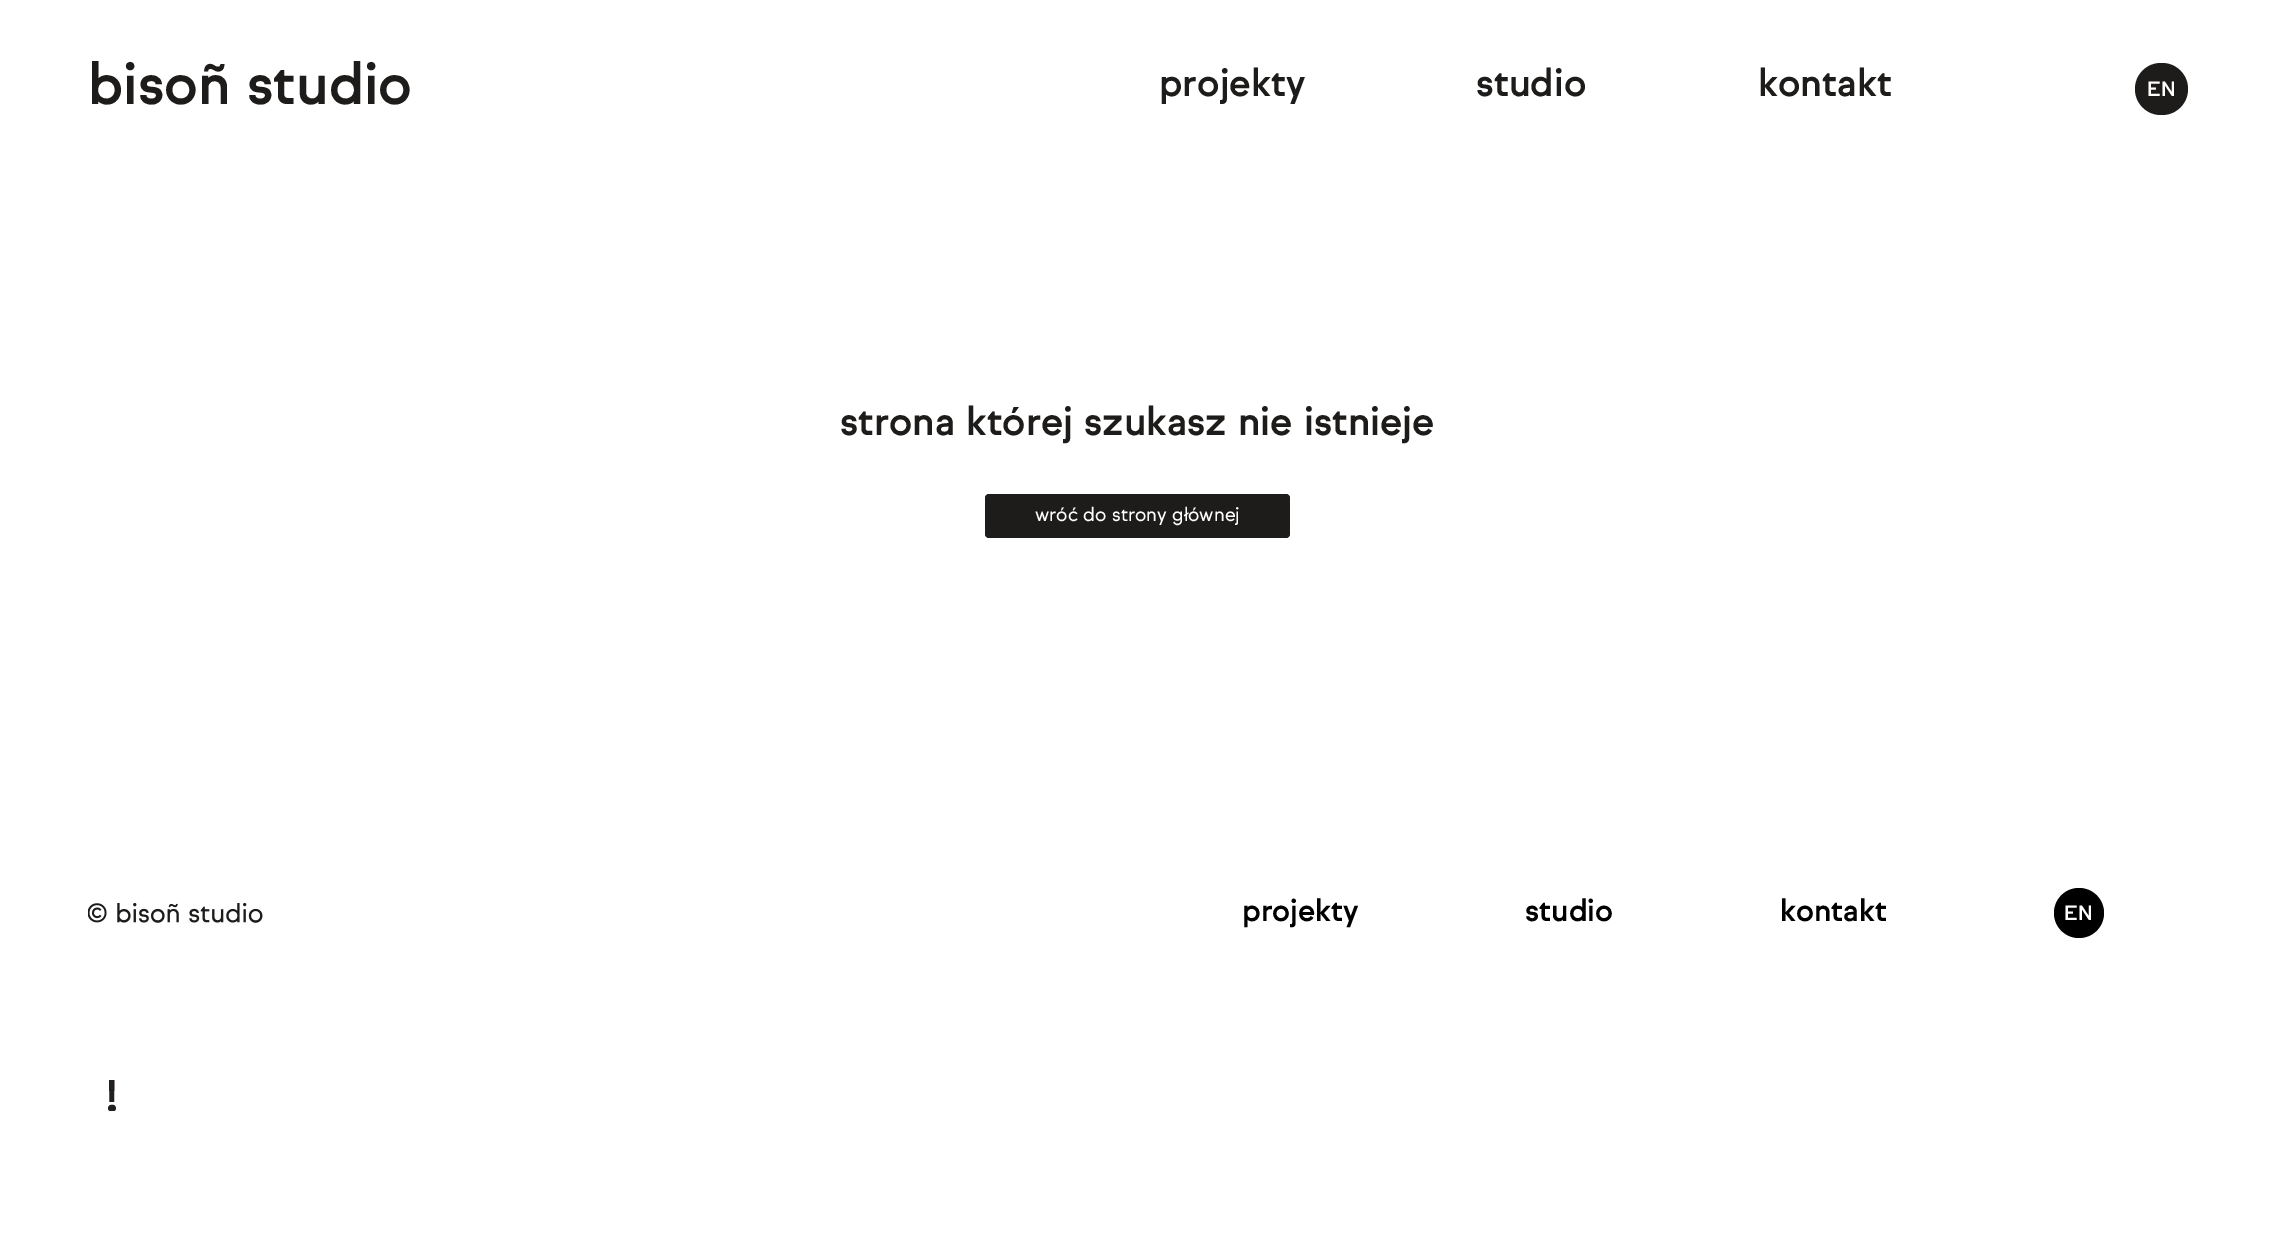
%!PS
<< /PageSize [2275 1246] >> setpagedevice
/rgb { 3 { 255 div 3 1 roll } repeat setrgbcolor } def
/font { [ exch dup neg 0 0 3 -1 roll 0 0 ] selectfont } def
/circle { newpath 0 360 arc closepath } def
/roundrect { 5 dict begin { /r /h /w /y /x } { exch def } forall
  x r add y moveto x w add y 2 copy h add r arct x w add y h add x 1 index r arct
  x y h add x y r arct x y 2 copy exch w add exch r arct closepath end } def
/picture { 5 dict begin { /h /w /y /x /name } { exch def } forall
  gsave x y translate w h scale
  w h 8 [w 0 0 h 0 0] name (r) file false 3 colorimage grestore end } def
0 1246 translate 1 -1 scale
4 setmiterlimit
255 255 255 rgb
0 0 2275 1246 rectfill
29 28 26 rgb
2135 63 53 52 26 roundrect fill
985 494 305 44 4 roundrect fill
(img/1.rgb) 88 903 175 20 picture
0 0 0 rgb
2079 913 25 circle fill
gsave
96 1080 32 31 rectclip
35 31 32 rgb
112 1105 moveto 116.5 1104 117.5 1111 113 1111.5 curveto 105.5 1112 107.5 1104 112 1105 curveto 114.5 1080 moveto 114 1102 lineto 109.5 1102 lineto 109 1080 lineto closepath fill
grestore
/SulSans-Medium 56.25 font
29 28 26 rgb
88 104 moveto (bisoñ studio) show
/SulSans-Medium 37.5 font
[
  [(projekty) 1159 96]
  [(studio) 1476 96]
  [(kontakt) 1758 96]
] { aload pop moveto show } forall
/SulSans-Medium 20 font
255 255 255 rgb
2147 96 moveto (EN) show
/SulSans-Medium 38.75 font
29 28 26 rgb
840 435 moveto (strona której szukasz nie istnieje) show
/SulSans-Regular 18.75 font
255 255 255 rgb
1035 521 moveto (wróć do strony głównej) show
/SulSans-Medium 30 font
0 0 0 rgb
[
  [(projekty) 1242 921]
  [(studio) 1525 921]
  [(kontakt) 1780 921]
] { aload pop moveto show } forall
/SulSans-Medium 20 font
255 255 255 rgb
2064 920 moveto (EN) show
showpage
